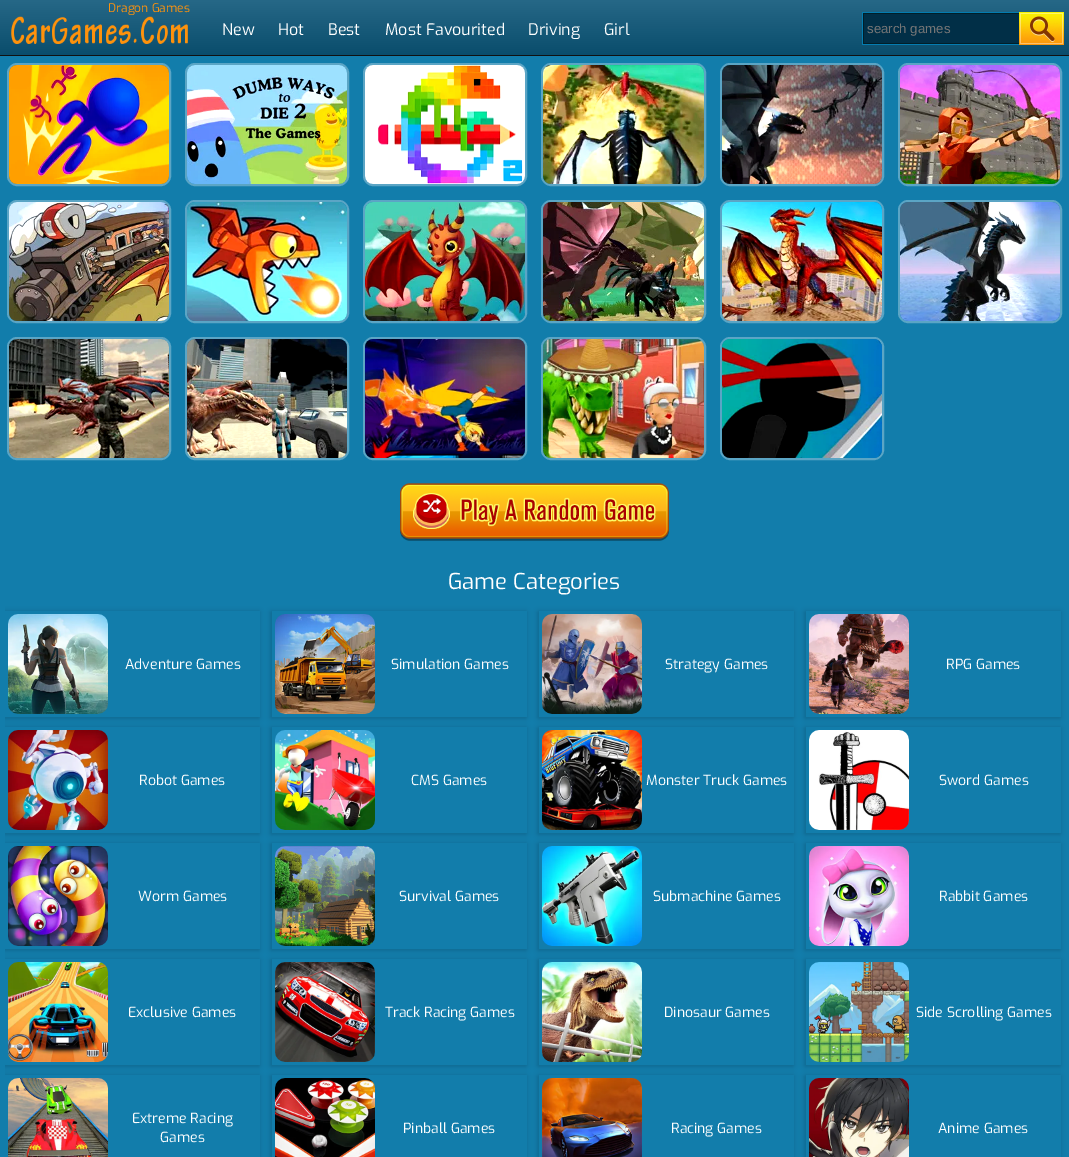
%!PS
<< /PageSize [1069 1157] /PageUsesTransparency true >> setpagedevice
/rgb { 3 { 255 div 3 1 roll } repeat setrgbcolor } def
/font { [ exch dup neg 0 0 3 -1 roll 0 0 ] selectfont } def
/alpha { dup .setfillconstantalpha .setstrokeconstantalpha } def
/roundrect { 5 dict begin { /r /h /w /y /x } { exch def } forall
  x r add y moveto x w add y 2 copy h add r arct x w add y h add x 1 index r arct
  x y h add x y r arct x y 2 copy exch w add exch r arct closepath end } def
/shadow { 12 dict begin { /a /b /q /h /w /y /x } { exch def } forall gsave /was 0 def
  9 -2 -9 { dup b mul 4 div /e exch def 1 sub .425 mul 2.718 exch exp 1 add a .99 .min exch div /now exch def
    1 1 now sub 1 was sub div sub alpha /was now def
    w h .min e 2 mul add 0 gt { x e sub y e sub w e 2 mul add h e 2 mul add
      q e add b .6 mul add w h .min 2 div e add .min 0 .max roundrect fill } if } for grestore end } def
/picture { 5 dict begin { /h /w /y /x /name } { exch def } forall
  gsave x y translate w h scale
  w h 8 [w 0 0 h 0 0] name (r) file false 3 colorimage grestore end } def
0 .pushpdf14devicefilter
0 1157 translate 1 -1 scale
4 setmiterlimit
18 125 171 rgb
0 0 1069 1157 rectfill
gsave 0 0 moveto 1069 0 lineto 1069 55 lineto 0 55 lineto closepath clip newpath
<< /ShadingType 2 /ColorSpace /DeviceRGB /Coords [535 0 535 55] /Extend [true true] /Function << /FunctionType 2 /Domain [0 1] /C0 [0.149 0.408 0.529] /C1 [0.039 0.302 0.424] /N 1 >> >> shfill grestore
17 17 17 rgb
0 55 1069 1 rectfill
(img/1.rgb) 11 16 177 28 picture
(img/2.rgb) 862 12 202 33 picture
91 165 197 rgb
2 setlinewidth
8 64 162 121 9 roundrect stroke
(img/3.rgb) 9 65 160 119 picture
186 64 162 121 9 roundrect stroke
(img/4.rgb) 187 65 160 119 picture
364 64 162 121 9 roundrect stroke
(img/5.rgb) 365 65 160 119 picture
542 64 163 121 9 roundrect stroke
(img/6.rgb) 543 65 161 119 picture
721 64 162 121 9 roundrect stroke
(img/7.rgb) 722 65 160 119 picture
899 64 162 121 9 roundrect stroke
(img/8.rgb) 900 65 160 119 picture
8 201 162 121 9 roundrect stroke
(img/9.rgb) 9 202 160 119 picture
186 201 162 121 9 roundrect stroke
(img/10.rgb) 187 202 160 119 picture
364 201 162 121 9 roundrect stroke
(img/11.rgb) 365 202 160 119 picture
542 201 163 121 9 roundrect stroke
(img/12.rgb) 543 202 161 119 picture
721 201 162 121 9 roundrect stroke
(img/13.rgb) 722 202 160 119 picture
899 201 162 121 9 roundrect stroke
(img/14.rgb) 900 202 160 119 picture
8 338 162 121 9 roundrect stroke
(img/15.rgb) 9 339 160 119 picture
186 338 162 121 9 roundrect stroke
(img/16.rgb) 187 339 160 119 picture
364 338 162 121 9 roundrect stroke
(img/17.rgb) 365 339 160 119 picture
542 338 163 121 9 roundrect stroke
(img/18.rgb) 543 339 161 119 picture
721 338 162 121 9 roundrect stroke
(img/19.rgb) 722 339 160 119 picture
(img/20.rgb) 400 483 269 58 picture
gsave
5 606 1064 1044 rectclip
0 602 moveto 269 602 lineto 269 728 lineto 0 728 lineto closepath 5 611 moveto 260 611 lineto 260 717 lineto 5 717 lineto closepath eoclip newpath
0 0 0 rgb
4 612 255 106 0 3 0.2 shadow
grestore
(img/21.rgb) 8 614 100 100 picture
gsave
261 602 moveto 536 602 lineto 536 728 lineto 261 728 lineto closepath 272 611 moveto 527 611 lineto 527 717 lineto 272 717 lineto closepath eoclip newpath
0 0 0 rgb
271 612 255 106 0 3 0.2 shadow
grestore
(img/22.rgb) 275 614 100 100 picture
gsave
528 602 moveto 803 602 lineto 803 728 lineto 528 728 lineto closepath 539 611 moveto 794 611 lineto 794 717 lineto 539 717 lineto closepath eoclip newpath
0 0 0 rgb
538 612 255 106 0 3 0.2 shadow
grestore
(img/23.rgb) 542 614 100 100 picture
gsave
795 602 moveto 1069 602 lineto 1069 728 lineto 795 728 lineto closepath 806 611 moveto 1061 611 lineto 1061 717 lineto 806 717 lineto closepath eoclip newpath
0 0 0 rgb
805 612 255 106 0 3 0.2 shadow
grestore
(img/24.rgb) 809 614 100 100 picture
gsave
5 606 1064 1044 rectclip
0 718 moveto 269 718 lineto 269 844 lineto 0 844 lineto closepath 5 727 moveto 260 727 lineto 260 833 lineto 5 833 lineto closepath eoclip newpath
0 0 0 rgb
4 728 255 106 0 3 0.2 shadow
grestore
(img/25.rgb) 8 730 100 100 picture
gsave
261 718 moveto 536 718 lineto 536 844 lineto 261 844 lineto closepath 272 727 moveto 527 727 lineto 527 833 lineto 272 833 lineto closepath eoclip newpath
0 0 0 rgb
271 728 255 106 0 3 0.2 shadow
grestore
(img/26.rgb) 275 730 100 100 picture
gsave
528 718 moveto 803 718 lineto 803 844 lineto 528 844 lineto closepath 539 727 moveto 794 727 lineto 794 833 lineto 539 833 lineto closepath eoclip newpath
0 0 0 rgb
538 728 255 106 0 3 0.2 shadow
grestore
(img/27.rgb) 542 730 100 100 picture
gsave
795 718 moveto 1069 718 lineto 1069 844 lineto 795 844 lineto closepath 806 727 moveto 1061 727 lineto 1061 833 lineto 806 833 lineto closepath eoclip newpath
0 0 0 rgb
805 728 255 106 0 3 0.2 shadow
grestore
(img/28.rgb) 809 730 100 100 picture
gsave
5 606 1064 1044 rectclip
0 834 moveto 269 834 lineto 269 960 lineto 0 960 lineto closepath 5 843 moveto 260 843 lineto 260 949 lineto 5 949 lineto closepath eoclip newpath
0 0 0 rgb
4 844 255 106 0 3 0.2 shadow
grestore
(img/29.rgb) 8 846 100 100 picture
gsave
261 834 moveto 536 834 lineto 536 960 lineto 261 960 lineto closepath 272 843 moveto 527 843 lineto 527 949 lineto 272 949 lineto closepath eoclip newpath
0 0 0 rgb
271 844 255 106 0 3 0.2 shadow
grestore
(img/30.rgb) 275 846 100 100 picture
gsave
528 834 moveto 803 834 lineto 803 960 lineto 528 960 lineto closepath 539 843 moveto 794 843 lineto 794 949 lineto 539 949 lineto closepath eoclip newpath
0 0 0 rgb
538 844 255 106 0 3 0.2 shadow
grestore
(img/31.rgb) 542 846 100 100 picture
gsave
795 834 moveto 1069 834 lineto 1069 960 lineto 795 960 lineto closepath 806 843 moveto 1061 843 lineto 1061 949 lineto 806 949 lineto closepath eoclip newpath
0 0 0 rgb
805 844 255 106 0 3 0.2 shadow
grestore
(img/32.rgb) 809 846 100 100 picture
gsave
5 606 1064 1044 rectclip
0 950 moveto 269 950 lineto 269 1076 lineto 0 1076 lineto closepath 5 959 moveto 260 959 lineto 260 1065 lineto 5 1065 lineto closepath eoclip newpath
0 0 0 rgb
4 960 255 106 0 3 0.2 shadow
grestore
(img/33.rgb) 8 962 100 100 picture
gsave
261 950 moveto 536 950 lineto 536 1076 lineto 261 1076 lineto closepath 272 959 moveto 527 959 lineto 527 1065 lineto 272 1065 lineto closepath eoclip newpath
0 0 0 rgb
271 960 255 106 0 3 0.2 shadow
grestore
(img/34.rgb) 275 962 100 100 picture
gsave
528 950 moveto 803 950 lineto 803 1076 lineto 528 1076 lineto closepath 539 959 moveto 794 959 lineto 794 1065 lineto 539 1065 lineto closepath eoclip newpath
0 0 0 rgb
538 960 255 106 0 3 0.2 shadow
grestore
(img/35.rgb) 542 962 100 100 picture
gsave
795 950 moveto 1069 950 lineto 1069 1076 lineto 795 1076 lineto closepath 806 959 moveto 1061 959 lineto 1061 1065 lineto 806 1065 lineto closepath eoclip newpath
0 0 0 rgb
805 960 255 106 0 3 0.2 shadow
grestore
(img/36.rgb) 809 962 100 100 picture
gsave
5 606 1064 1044 rectclip
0 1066 moveto 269 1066 lineto 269 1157 lineto 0 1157 lineto closepath 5 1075 moveto 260 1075 lineto 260 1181 lineto 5 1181 lineto closepath eoclip newpath
0 0 0 rgb
4 1076 255 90 0 3 0.2 shadow
grestore
(img/37.rgb) 8 1078 100 79 picture
gsave
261 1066 moveto 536 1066 lineto 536 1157 lineto 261 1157 lineto closepath 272 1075 moveto 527 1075 lineto 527 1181 lineto 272 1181 lineto closepath eoclip newpath
0 0 0 rgb
271 1076 255 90 0 3 0.2 shadow
grestore
(img/38.rgb) 275 1078 100 79 picture
gsave
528 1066 moveto 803 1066 lineto 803 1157 lineto 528 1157 lineto closepath 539 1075 moveto 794 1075 lineto 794 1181 lineto 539 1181 lineto closepath eoclip newpath
0 0 0 rgb
538 1076 255 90 0 3 0.2 shadow
grestore
(img/39.rgb) 542 1078 100 79 picture
gsave
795 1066 moveto 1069 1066 lineto 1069 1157 lineto 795 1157 lineto closepath 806 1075 moveto 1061 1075 lineto 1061 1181 lineto 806 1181 lineto closepath eoclip newpath
0 0 0 rgb
805 1076 255 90 0 3 0.2 shadow
grestore
(img/40.rgb) 809 1078 100 79 picture
/Exo-Regular 12 font
254 146 12 rgb
108 12 moveto (Dragon Games) show
/Exo-Regular 16 font
255 255 255 rgb
[
  [(New) 222 35]
  [(Hot) 278 35]
  [(Best) 328 35]
  [(Most Favourited) 385 35]
  [(Driving) 528 35]
  [(Girl) 604 35]
] { aload pop moveto show } forall
/LiberationSans-Regular 13.25 font
117 117 117 rgb
867 33 moveto (search games) show
/Exo-Regular 22 font
255 255 255 rgb
448 589 moveto (Game Categories) show
/Exo-Regular 14 font
[
  [(Adventure Games) 125 669]
  [(Simulation Games) 391 669]
  [(Strategy Games) 665 669]
  [(RPG Games) 946 669]
  [(Robot Games) 139 785]
  [(CMS Games) 411 785]
  [(Monster Truck Games) 646 785]
  [(Sword Games) 939 785]
  [(Worm Games) 138 901]
  [(Survival Games) 399 901]
  [(Submachine Games) 653 901]
  [(Rabbit Games) 939 901]
  [(Exclusive Games) 128 1017]
  [(Track Racing Games) 385 1017]
  [(Dinosaur Games) 664 1017]
  [(Side Scrolling Games) 916 1017]
  [(Extreme Racing) 132 1123]
  [(Games) 160 1142]
  [(Pinball Games) 403 1133]
  [(Racing Games) 671 1133]
  [(Anime Games) 938 1133]
] { aload pop moveto show } forall
.poppdf14devicefilter showpage
